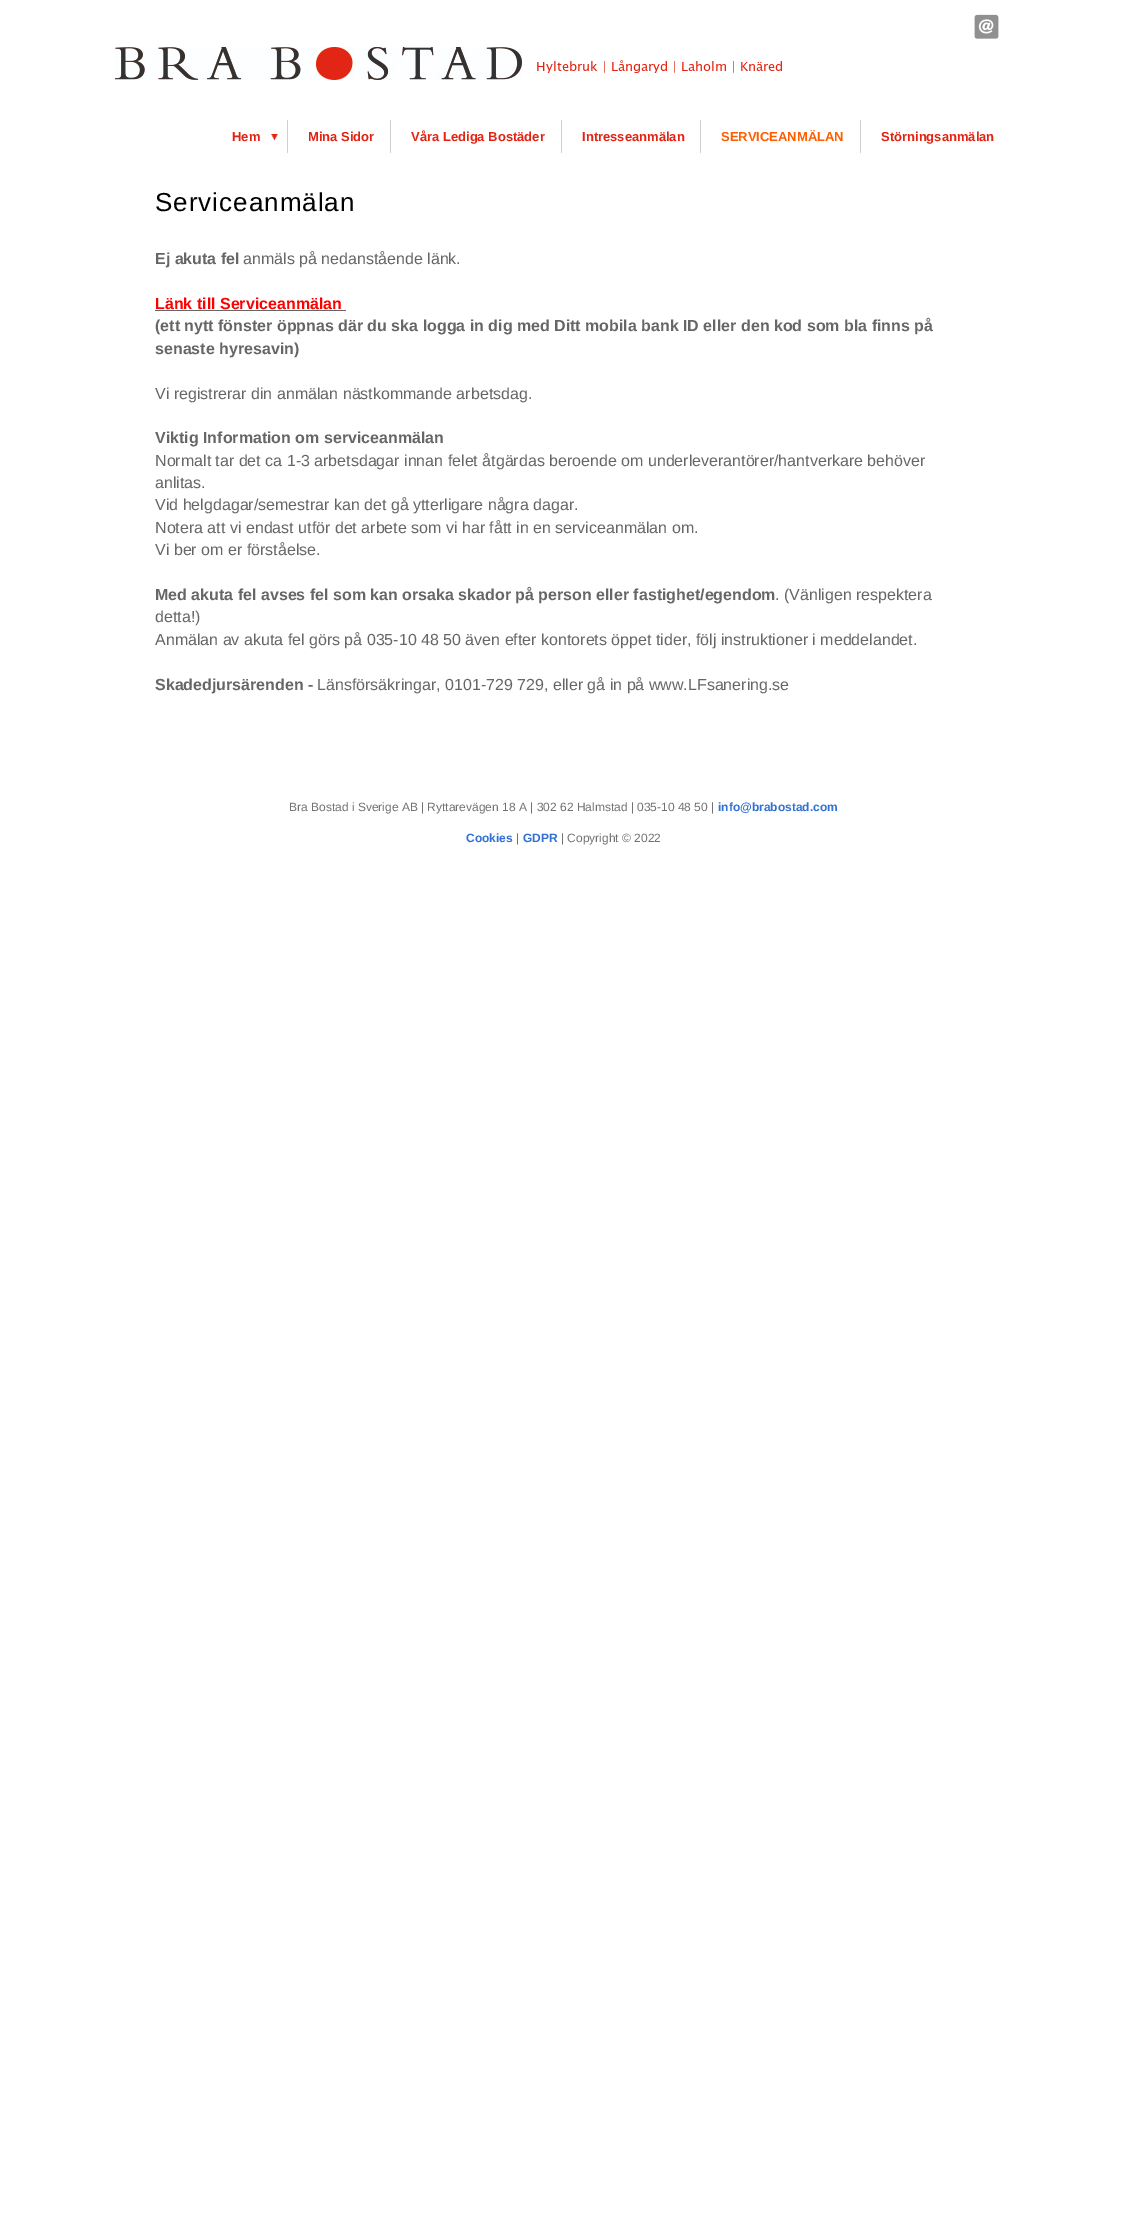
%!PS
<< /PageSize [1127 2238] >> setpagedevice
/rgb { 3 { 255 div 3 1 roll } repeat setrgbcolor } def
/font { [ exch dup neg 0 0 3 -1 roll 0 0 ] selectfont } def
/picture { 5 dict begin { /h /w /y /x /name } { exch def } forall
  gsave x y translate w h scale
  w h 8 [w 0 0 h 0 0] name (r) file false 3 colorimage grestore end } def
0 2238 translate 1 -1 scale
4 setmiterlimit
255 255 255 rgb
0 0 1127 2238 rectfill
(img/1.rgb) 974 14 25 25 picture
(img/2.rgb) 115 47 407 33 picture
(img/3.rgb) 537 60 245 13 picture
207 207 207 rgb
287 120 1 33 rectfill
(img/4.rgb) 271 134 7 7 picture
[
  [390 120 1 33 207 207 207]
  [561 120 1 33 207 207 207]
  [700 120 1 33 207 207 207]
  [860 120 1 33 207 207 207]
  [155 310 191 1 102 102 102]
] { aload pop rgb rectfill } forall
/LiberationSans-Bold 13 font
227 35 18 rgb
[
  [(Hem) 232 141]
  [(Mina Sidor) 308 141]
  [(Våra Lediga Bostäder) 411 141]
  [(Intresseanmälan) 582 141]
] { aload pop moveto show } forall
255 94 0 rgb
721 141 moveto (SERVICEANMÄLAN) show
227 35 18 rgb
881 141 moveto (Störningsanmälan) show
/LiberationSans-Regular 26 font
0 0 0 rgb
155 211 moveto 1 0 (Serviceanmälan) ashow
/LiberationSans-Bold 16 font
102 102 102 rgb
155 264 moveto (Ej akuta fel) show
/LiberationSans-Regular 16 font
243 264 moveto (anmäls på nedanstående länk.) show
/LiberationSans-Bold 16 font
255 0 0 rgb
155 309 moveto (Länk till Serviceanmälan) show
102 102 102 rgb
155 331 moveto (\(ett nytt fönster öppnas där du ska logga in dig med Ditt mobila bank ID eller den kod som bla finns på) show
155 354 moveto (senaste hyresavin\)) show
/LiberationSans-Regular 16 font
155 399 moveto (Vi registrerar din anmälan nästkommande arbetsdag.) show
/LiberationSans-Bold 16 font
155 443 moveto (Viktig Information om serviceanmälan) show
/LiberationSans-Regular 16 font
[
  [(Normalt tar det ca 1-3 arbetsdagar innan felet åtgärdas beroende om underleverantörer/hantverkare behöver) 155 466]
  [(anlitas.) 155 488]
  [(Vid helgdagar/semestrar kan det gå ytterligare några dagar.) 155 510]
  [(Notera att vi endast utför det arbete som vi har fått in en serviceanmälan om.) 155 533]
  [(Vi ber om er förståelse.) 155 555]
] { aload pop moveto show } forall
/LiberationSans-Bold 16 font
155 600 moveto (Med akuta fel avses fel som kan orsaka skador på person eller fastighet/egendom) show
/LiberationSans-Regular 16 font
[
  [(. \(Vänligen respektera) 775 600]
  [(detta!\)) 155 622]
  [(Anmälan av akuta fel görs på 035-10 48 50 även efter kontorets öppet tider, följ instruktioner i meddelandet.) 155 645]
] { aload pop moveto show } forall
/LiberationSans-Bold 16 font
155 690 moveto (Skadedjursärenden -) show
/LiberationSans-Regular 16 font
317 690 moveto (Länsförsäkringar, 0101-729 729, eller gå in på www.LFsanering.se) show
/LiberationSans-Regular 12 font
115 114 114 rgb
289 811 moveto (Bra Bostad i Sverige AB | Ryttarevägen 18 A | 302 62 Halmstad | 035-10 48 50 |) show
/LiberationSans-Bold 12 font
49 112 212 rgb
718 811 moveto (info@brabostad.com) show
466 842 moveto (Cookies) show
/LiberationSans-Regular 12 font
115 114 114 rgb
516 842 moveto (|) show
/LiberationSans-Bold 12 font
49 112 212 rgb
523 842 moveto (GDPR) show
/LiberationSans-Regular 12 font
115 114 114 rgb
561 842 moveto (| Copyright © 2022) show
showpage
